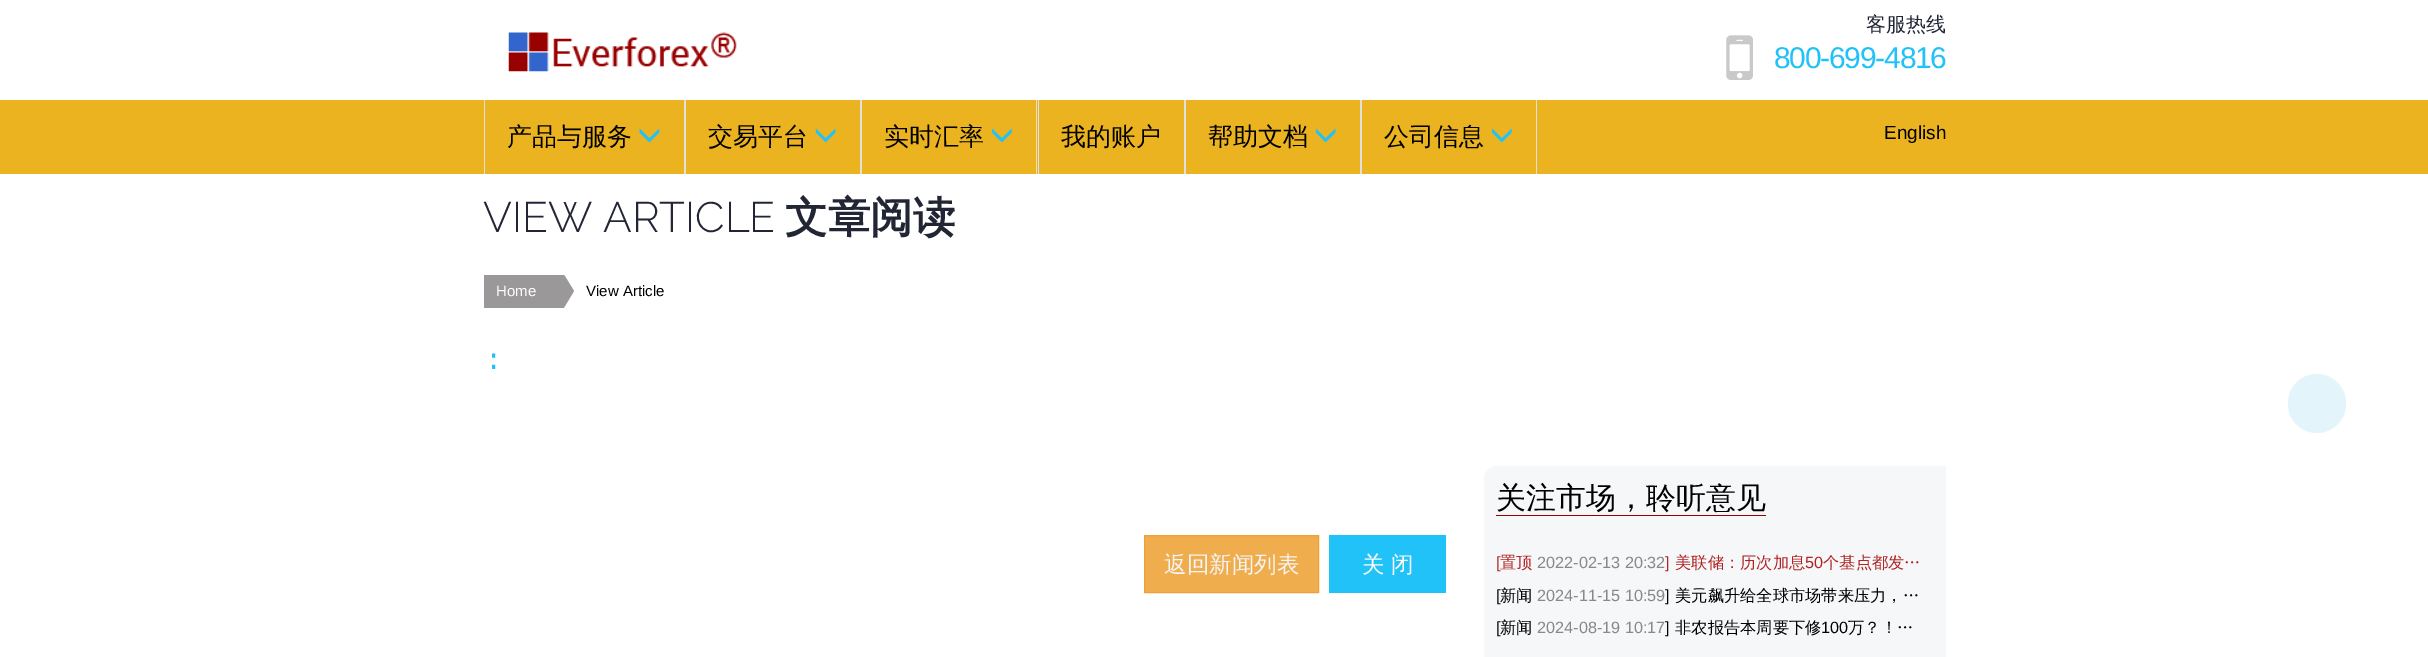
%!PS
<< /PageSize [2428 657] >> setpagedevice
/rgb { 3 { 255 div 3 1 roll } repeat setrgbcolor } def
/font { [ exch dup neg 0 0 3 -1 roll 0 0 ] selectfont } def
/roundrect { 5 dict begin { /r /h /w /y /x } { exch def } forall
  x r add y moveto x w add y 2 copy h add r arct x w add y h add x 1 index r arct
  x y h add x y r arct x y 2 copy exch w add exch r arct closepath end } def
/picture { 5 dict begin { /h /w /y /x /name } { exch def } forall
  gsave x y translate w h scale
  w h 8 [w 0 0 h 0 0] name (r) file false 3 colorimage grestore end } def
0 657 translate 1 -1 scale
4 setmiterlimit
255 255 255 rgb
0 0 2428 657 rectfill
(img/1.rgb) 508 32 229 40 picture
(img/2.rgb) 1726 35 27 45 picture
[
  [0 100 2428 74 234 179 31]
  [684 100 2 74 224 224 224]
  [484 100 1 74 224 224 224]
] { aload pop rgb rectfill } forall
(img/3.rgb) 639 128 21 15 picture
860 100 2 74 rectfill
(img/4.rgb) 815 128 21 15 picture
1036 100 1 74 rectfill
(img/5.rgb) 992 128 20 15 picture
[
  [1184 100 2 74 224 224 224]
  [1038 100 1 74 224 224 224]
  [1360 100 2 74 224 224 224]
] { aload pop rgb rectfill } forall
(img/4.rgb) 1315 128 21 15 picture
1536 100 1 74 rectfill
(img/5.rgb) 1492 128 20 15 picture
154 152 152 rgb
484 275 52 33 rectfill
gsave
484 275 1462 33 rectclip
536 354 moveto 536 229 lineto 574 291 lineto closepath fill
grestore
240 173 78 rgb
1144.5 535.5 moveto 1318.5 535.5 lineto 1318.5 592.5 lineto 1144.5 592.5 lineto closepath gsave fill grestore
238 162 54 rgb
stroke
33 194 248 rgb
1329 535 117 58 rectfill
245 247 249 rgb
1497 466 moveto 1946 466 lineto 1946 657 lineto 1946 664 1940 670 1933 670 curveto 1484 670 lineto 1484 479 lineto 1484 472 1490 466 1497 466 curveto closepath fill
153 0 0 rgb
1496 515 270 1 rectfill
227 245 251 rgb
2288 374 58 59 29 roundrect fill
/WenQuanYiZenHei-Medium 20 font
34 37 51 rgb
1866 31 moveto (客服热线) show
/LiberationSans-Regular 30 font
33 194 248 rgb
1774 68 moveto -1.25 0 (800-699-4816) ashow
/WenQuanYiZenHei-Medium 25 font
0 0 0 rgb
[
  [(产品与服务) 507 145]
  [(交易平台) 708 145]
  [(实时汇率) 884 145]
  [(我的账户) 1061 145]
  [(帮助文档) 1208 145]
  [(公司信息) 1384 145]
] { aload pop moveto show } forall
/LiberationSans-Regular 19 font
1884 139 moveto (English) show
/Raleway-Light 42.5 font
34 37 51 rgb
483 232 moveto (VIEW ARTICLE) show
/WenQuanYiZenHei-Bold 42.5 font
785 232 moveto (文章阅读) show
/LiberationSans-Regular 15 font
255 255 255 rgb
496 296 moveto (Home) show
0 0 0 rgb
586 296 moveto (View Article) show
/Raleway-Bold 30 font
33 194 248 rgb
490 369 moveto (:) show
/WenQuanYiZenHei-Medium 22.5 font
245 245 245 rgb
1164 572 moveto (返回新闻列表) show
255 255 255 rgb
1362 572 moveto (关) show
1391 572 moveto (闭) show
/WenQuanYiZenHei-Medium 30 font
0 0 0 rgb
1496 508 moveto (关注市场，聆听意见) show
/LiberationSans-Regular 16.25 font
178 34 34 rgb
1496 568 moveto ([) show
/WenQuanYiZenHei-Medium 16.25 font
1500 568 moveto (置顶) show
/LiberationSans-Regular 16.25 font
136 136 136 rgb
1537 568 moveto (2022-02-13 20:32) show
178 34 34 rgb
1665 568 moveto (]) show
/WenQuanYiZenHei-Medium 16.25 font
1675 568 moveto (美联储：历次加息) show
/LiberationSans-Regular 16.25 font
1805 568 moveto (50) show
/WenQuanYiZenHei-Medium 16.25 font
1823 568 moveto (个基点都发…) show
/LiberationSans-Regular 16.25 font
0 0 0 rgb
1496 601 moveto ([) show
/WenQuanYiZenHei-Medium 16.25 font
1500 601 moveto (新闻) show
/LiberationSans-Regular 16.25 font
136 136 136 rgb
1537 601 moveto (2024-11-15 10:59) show
0 0 0 rgb
1665 601 moveto (]) show
/WenQuanYiZenHei-Medium 16.25 font
1675 601 moveto (美元飙升给全球市场带来压力，…) show
/LiberationSans-Regular 16.25 font
1496 633 moveto ([) show
/WenQuanYiZenHei-Medium 16.25 font
1500 633 moveto (新闻) show
/LiberationSans-Regular 16.25 font
136 136 136 rgb
1537 633 moveto (2024-08-19 10:17) show
0 0 0 rgb
1665 633 moveto (]) show
/WenQuanYiZenHei-Medium 16.25 font
1675 633 moveto (非农报告本周要下修) show
/LiberationSans-Regular 16.25 font
1821 633 moveto (100) show
/WenQuanYiZenHei-Medium 16.25 font
1848 633 moveto (万？！…) show
showpage
